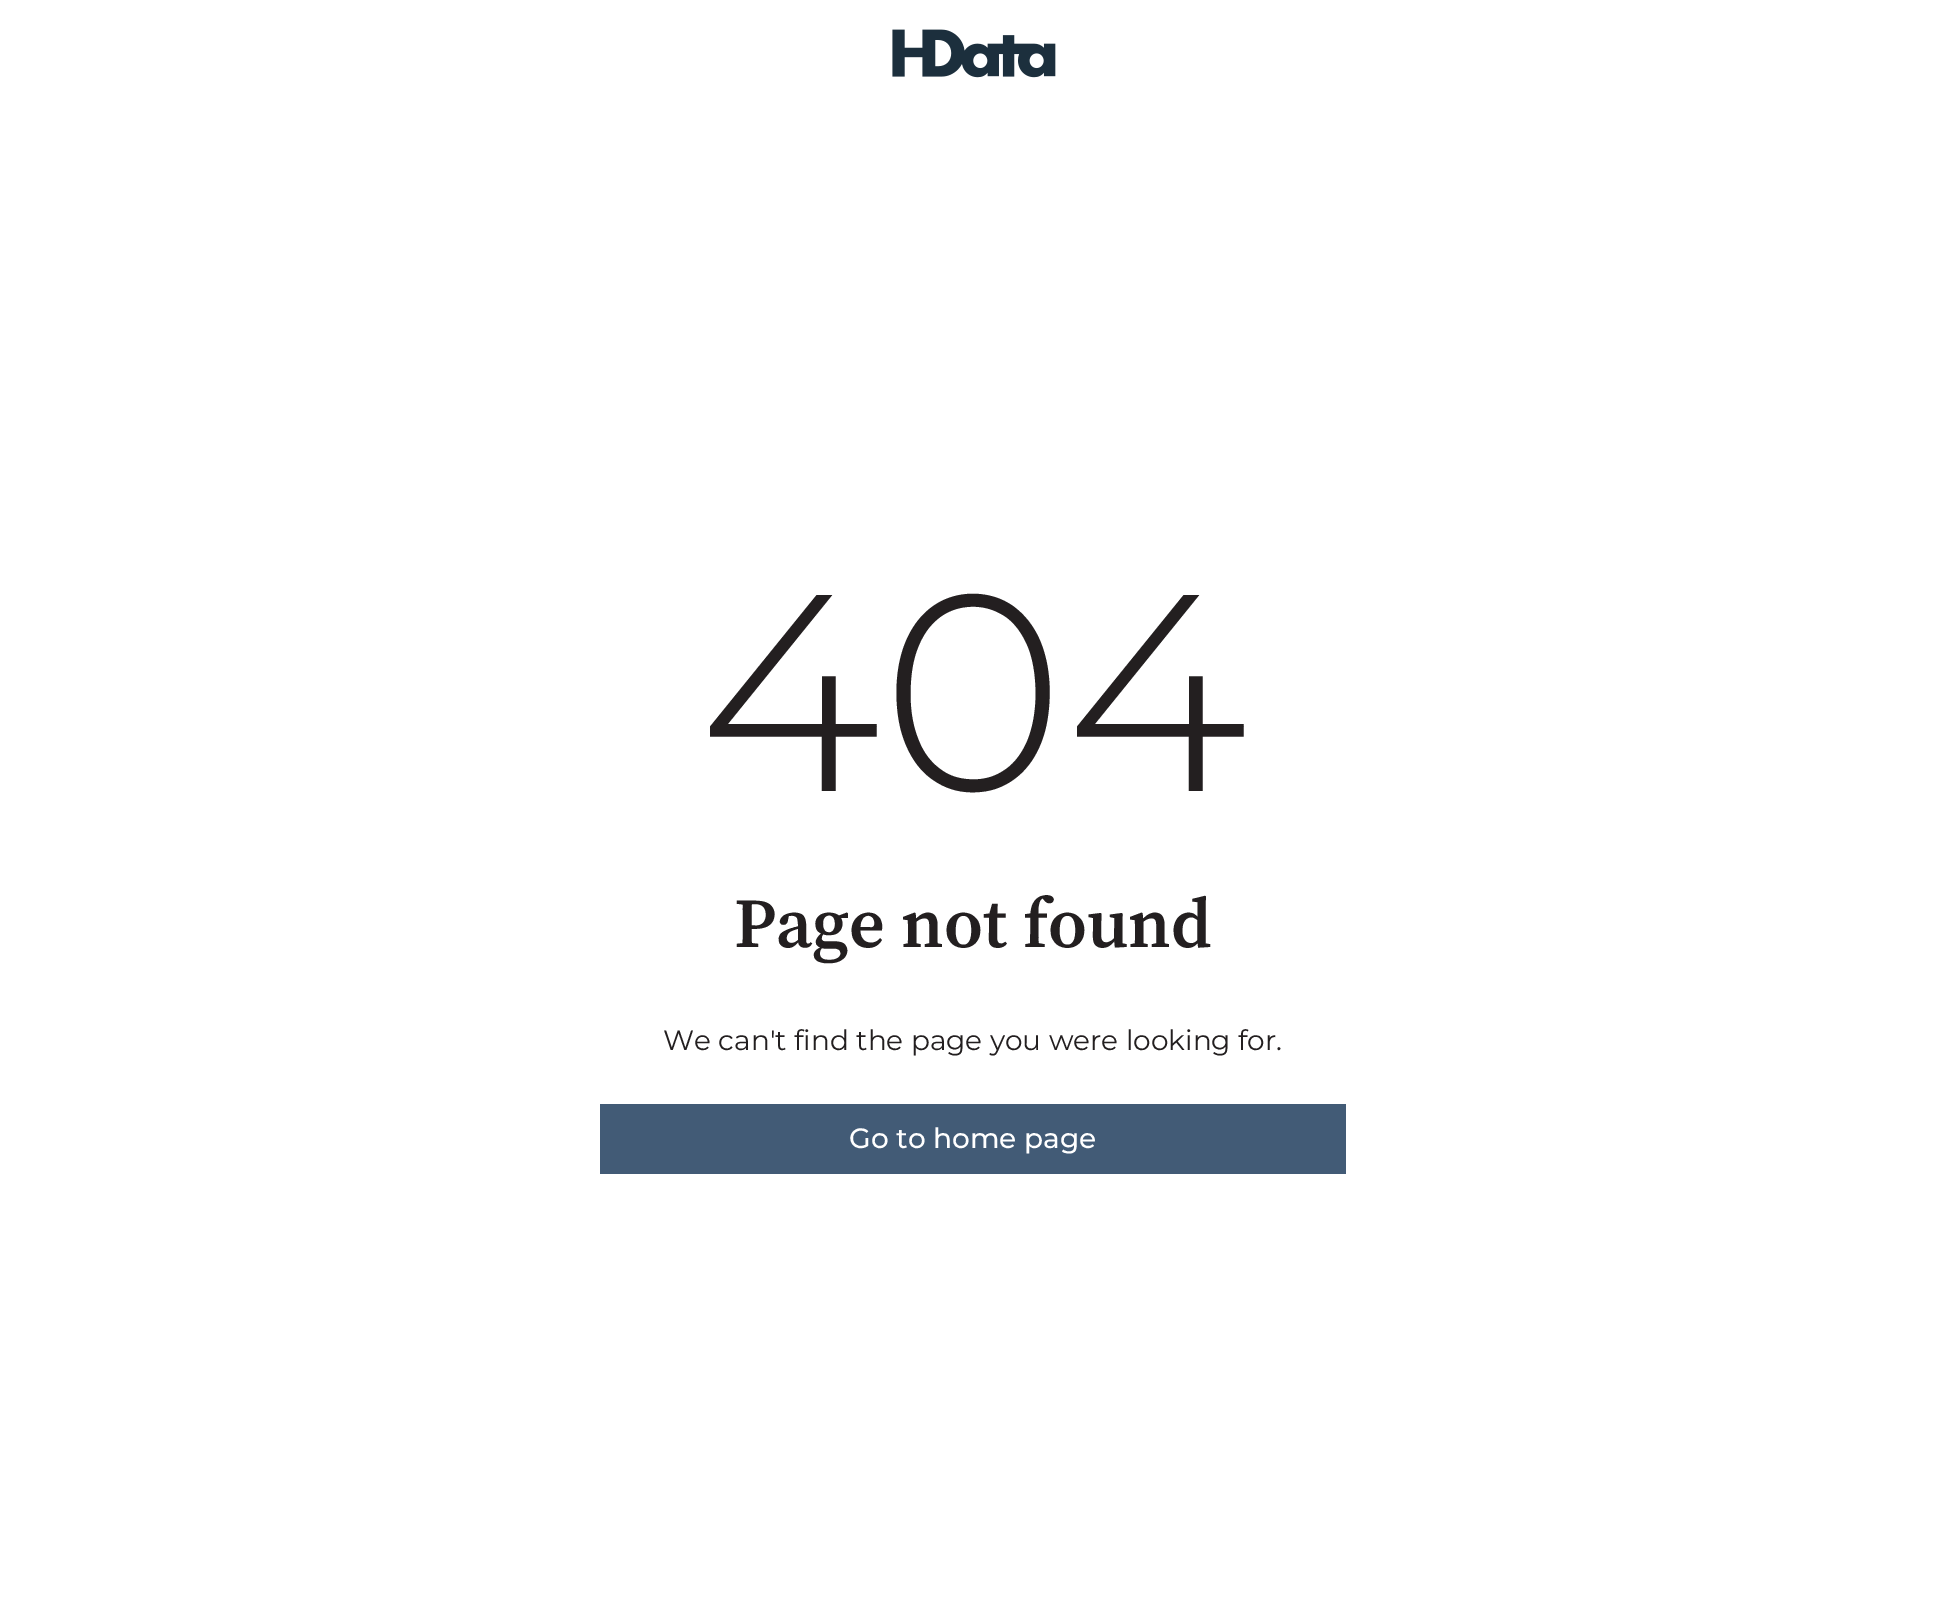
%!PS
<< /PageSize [1945 1618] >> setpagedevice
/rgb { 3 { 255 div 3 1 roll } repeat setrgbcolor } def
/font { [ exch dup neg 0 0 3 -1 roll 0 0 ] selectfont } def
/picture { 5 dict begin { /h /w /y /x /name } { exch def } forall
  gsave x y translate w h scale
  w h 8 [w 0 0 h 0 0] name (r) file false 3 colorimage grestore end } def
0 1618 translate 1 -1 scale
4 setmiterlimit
255 255 255 rgb
0 0 1945 1618 rectfill
(img/1.rgb) 892 29 164 49 picture
66 91 118 rgb
600 1104 746 70 rectfill
/Montserrat-Light 280 font
35 31 32 rgb
698 791 moveto (404) show
/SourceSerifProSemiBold-SemiBold 70 font
734 947 moveto (Page not found) show
/Montserrat-Regular 28 font
663 1050 moveto (We can't find the page you were looking for.) show
/Montserrat-Medium 28 font
255 255 255 rgb
849 1148 moveto (Go to home page) show
showpage
